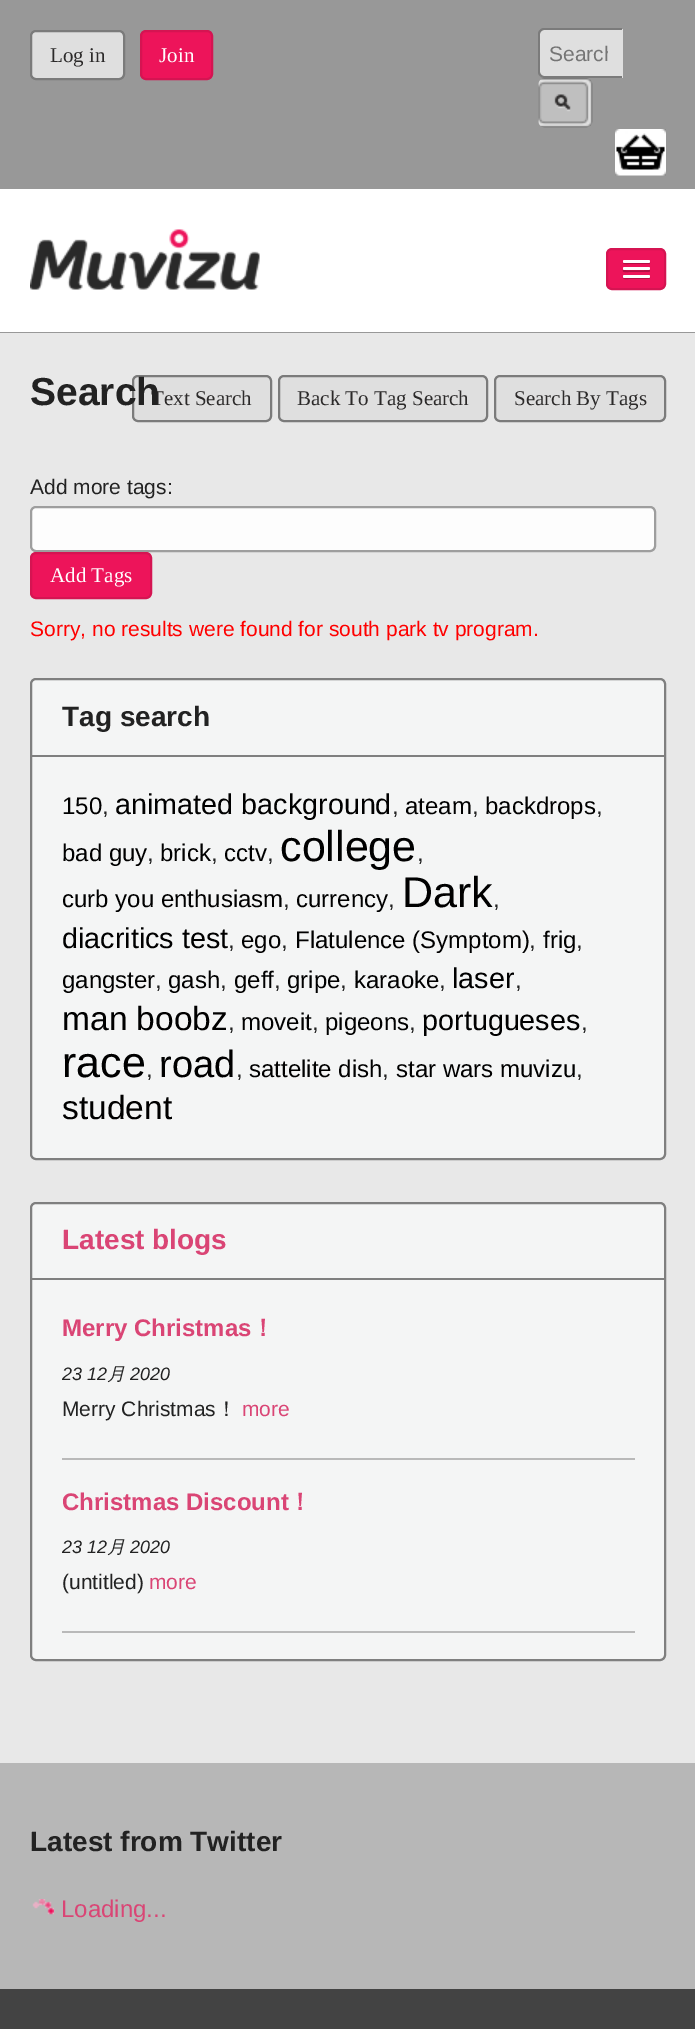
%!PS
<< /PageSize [695 2029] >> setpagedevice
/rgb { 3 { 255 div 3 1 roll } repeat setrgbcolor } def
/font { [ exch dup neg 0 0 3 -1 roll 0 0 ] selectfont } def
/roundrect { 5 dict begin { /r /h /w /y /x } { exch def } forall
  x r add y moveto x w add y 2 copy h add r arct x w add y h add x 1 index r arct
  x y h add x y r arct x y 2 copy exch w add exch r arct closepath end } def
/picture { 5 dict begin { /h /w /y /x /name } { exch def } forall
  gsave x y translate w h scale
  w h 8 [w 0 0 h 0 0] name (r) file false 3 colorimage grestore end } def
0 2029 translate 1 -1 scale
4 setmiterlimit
255 255 255 rgb
0 0 695 2029 rectfill
152 152 152 rgb
0 0 695 189 rectfill
223 223 223 rgb
31 31 93 48 5 roundrect gsave fill grestore
123 123 123 rgb
2 setlinewidth
stroke
237 20 90 rgb
141 31 71 48 5 roundrect gsave fill grestore
213 20 82 rgb
stroke
223 223 223 rgb
545 29 moveto 623 29 lineto 623 78 lineto 545 78 lineto 541.5 78 539 75.5 539 72 curveto 539 35 lineto 539 31.5 541.5 29 545 29 curveto closepath fill
123 123 123 rgb
544 28 moveto 622 28 lineto 622 78 lineto 544 78 lineto 541 78 538 75 538 72 curveto 538 34 lineto 538 31 541 28 544 28 curveto closepath 544 30 moveto 622 30 lineto 622 76 lineto 544 76 lineto 542 76 540 74 540 72 curveto 540 34 lineto 540 32 542 30 544 30 curveto closepath eofill
(img/1.rgb) 538 78 55 50 picture
(img/2.rgb) 615 129 51 47 picture
152 152 152 rgb
0 332 695 1 rectfill
(img/3.rgb) 30 229 230 61 picture
237 20 90 rgb
607 249 58 40 5 roundrect gsave fill grestore
213 20 82 rgb
stroke
178 15 68 rgb
623 262 moveto 622.5 265 628 264 628.5 264 curveto 648.5 264 lineto 650 264 650.5 262 649.5 261.5 curveto 648.5 262.5 lineto 647 263 623.5 262.5 623 262 curveto closepath fill
255 255 255 rgb
623 260 27 3 1.5 roundrect fill
178 15 68 rgb
623 270 moveto 621.5 273 628.5 272 628.5 272 curveto 649 272 lineto 650 271.5 650.5 270 649.5 269 curveto 648 270 lineto 646 270.5 624 270.5 623 270 curveto closepath fill
255 255 255 rgb
623 267 27 3 1.5 roundrect fill
178 15 68 rgb
623 277 moveto 622.5 280 628 279 628.5 279 curveto 648.5 279 lineto 650 279 650.5 277 649.5 276.5 curveto 648.5 277.5 lineto 647 278 623.5 277.5 623 277 curveto closepath fill
255 255 255 rgb
623 275 27 3 1.5 roundrect fill
232 232 232 rgb
0 333 695 1430 rectfill
223 223 223 rgb
133 376 138 45 5 roundrect gsave fill grestore
123 123 123 rgb
stroke
223 223 223 rgb
279 376 208 45 5 roundrect gsave fill grestore
123 123 123 rgb
stroke
253 253 253 rgb
31 507 624 44 5 roundrect gsave fill grestore
158 158 158 rgb
stroke
237 20 90 rgb
31 553 120 45 5 roundrect gsave fill grestore
213 20 82 rgb
stroke
223 223 223 rgb
495 376 170 45 5 roundrect gsave fill grestore
123 123 123 rgb
stroke
244 245 245 rgb
31 679 634 480 5 roundrect gsave fill grestore
127 127 127 rgb
stroke
32 755 633 2 rectfill
244 245 245 rgb
31 1203 634 457 5 roundrect gsave fill grestore
127 127 127 rgb
stroke
[
  [32 1278 633 2 127 127 127]
  [62 1458 573 2 185 185 185]
  [62 1631 573 2 185 185 185]
  [0 1763 695 226 183 183 183]
] { aload pop rgb rectfill } forall
(img/4.rgb) 32 1899 22 16 picture
67 67 67 rgb
0 1989 695 40 rectfill
/LiberationSerif-Regular 21 font
44 42 42 rgb
50 62 moveto (Log in) show
255 255 255 rgb
159 62 moveto (Join) show
gsave
549 42 59 24 rectclip
/LiberationSans-Regular 21 font
117 117 117 rgb
549 61 moveto (Search) show
grestore
44 42 42 rgb
151 405 moveto (Text Search) show
/LiberationSans-Bold 39 font
34 34 34 rgb
30 405 moveto (Search) show
/LiberationSerif-Regular 21 font
44 42 42 rgb
297 405 moveto (Back To Tag Search) show
/LiberationSans-Regular 21 font
34 34 34 rgb
30 494 moveto (Add more tags:) show
/LiberationSerif-Regular 21 font
255 255 255 rgb
50 582 moveto (Add Tags) show
44 42 42 rgb
514 405 moveto (Search By Tags) show
/LiberationSans-Regular 21 font
255 0 0 rgb
30 636 moveto (Sorry, no results were found for south park tv program.) show
/LiberationSans-Bold 28 font
34 34 34 rgb
62 726 moveto (Tag search) show
/LiberationSans-Regular 24 font
0 0 0 rgb
62 814 moveto (150) show
34 34 34 rgb
102 814 moveto (,) show
/LiberationSans-Regular 28.75 font
0 0 0 rgb
115 814 moveto (animated background) show
/LiberationSans-Regular 24 font
34 34 34 rgb
392 814 moveto (,) show
0 0 0 rgb
405 814 moveto (ateam) show
34 34 34 rgb
472 814 moveto (,) show
0 0 0 rgb
485 814 moveto (backdrops) show
34 34 34 rgb
596 814 moveto (,) show
0 0 0 rgb
62 861 moveto (bad guy) show
34 34 34 rgb
147 861 moveto (,) show
0 0 0 rgb
160 861 moveto (brick) show
34 34 34 rgb
211 861 moveto (,) show
0 0 0 rgb
224 861 moveto (cctv) show
34 34 34 rgb
267 861 moveto (,) show
/LiberationSans-Regular 43 font
0 0 0 rgb
280 861 moveto (college) show
/LiberationSans-Regular 24 font
34 34 34 rgb
417 861 moveto (,) show
0 0 0 rgb
62 907 moveto (curb you enthusiasm) show
34 34 34 rgb
283 907 moveto (,) show
0 0 0 rgb
296 907 moveto (currency) show
34 34 34 rgb
388 907 moveto (,) show
/LiberationSans-Regular 43 font
0 0 0 rgb
402 907 moveto (Dark) show
/LiberationSans-Regular 24 font
34 34 34 rgb
493 907 moveto (,) show
/LiberationSans-Regular 28.75 font
0 0 0 rgb
62 948 moveto (diacritics test) show
/LiberationSans-Regular 24 font
34 34 34 rgb
228 948 moveto (,) show
0 0 0 rgb
241 948 moveto (ego) show
34 34 34 rgb
281 948 moveto (,) show
0 0 0 rgb
295 948 moveto (Flatulence \(Symptom\)) show
34 34 34 rgb
529 948 moveto (,) show
0 0 0 rgb
543 948 moveto (frig) show
34 34 34 rgb
576 948 moveto (,) show
0 0 0 rgb
62 988 moveto (gangster) show
34 34 34 rgb
155 988 moveto (,) show
0 0 0 rgb
168 988 moveto (gash) show
34 34 34 rgb
220 988 moveto (,) show
0 0 0 rgb
234 988 moveto (geff) show
34 34 34 rgb
274 988 moveto (,) show
0 0 0 rgb
287 988 moveto (gripe) show
34 34 34 rgb
340 988 moveto (,) show
0 0 0 rgb
354 988 moveto (karaoke) show
34 34 34 rgb
439 988 moveto (,) show
/LiberationSans-Regular 28.75 font
0 0 0 rgb
452 988 moveto (laser) show
/LiberationSans-Regular 24 font
34 34 34 rgb
515 988 moveto (,) show
/LiberationSans-Regular 33.5 font
0 0 0 rgb
62 1030 moveto (man boobz) show
/LiberationSans-Regular 24 font
34 34 34 rgb
228 1030 moveto (,) show
0 0 0 rgb
241 1030 moveto (moveit) show
34 34 34 rgb
312 1030 moveto (,) show
0 0 0 rgb
325 1030 moveto (pigeons) show
34 34 34 rgb
409 1030 moveto (,) show
/LiberationSans-Regular 28.75 font
0 0 0 rgb
422 1030 moveto (portugueses) show
/LiberationSans-Regular 24 font
34 34 34 rgb
581 1030 moveto (,) show
/LiberationSans-Regular 43 font
0 0 0 rgb
62 1077 moveto (race) show
/LiberationSans-Regular 24 font
34 34 34 rgb
146 1077 moveto (,) show
/LiberationSans-Regular 38 font
0 0 0 rgb
159 1077 moveto (road) show
/LiberationSans-Regular 24 font
34 34 34 rgb
236 1077 moveto (,) show
0 0 0 rgb
249 1077 moveto (sattelite dish) show
34 34 34 rgb
382 1077 moveto (,) show
0 0 0 rgb
396 1077 moveto (star wars muvizu) show
34 34 34 rgb
576 1077 moveto (,) show
/LiberationSans-Regular 33.5 font
0 0 0 rgb
62 1119 moveto (student) show
/LiberationSans-Bold 28 font
218 69 117 rgb
62 1249 moveto (Latest blogs) show
/LiberationSans-Bold 24 font
62 1336 moveto (Merry Christmas) show
/WenQuanYiZenHei-Bold 24 font
251 1336 moveto (！) show
/LiberationSans-Italic 18 font
34 34 34 rgb
62 1380 moveto (23 12) show
/WenQuanYiZenHei-MediumItalic 18 font
107 1380 moveto (月) show
/LiberationSans-Italic 18 font
130 1380 moveto (2020) show
/LiberationSans-Regular 21 font
62 1416 moveto (Merry Christmas) show
/WenQuanYiZenHei-Medium 21 font
216 1416 moveto (！) show
/LiberationSans-Regular 21 font
218 69 117 rgb
242 1416 moveto (more) show
/LiberationSans-Bold 24 font
62 1510 moveto (Christmas Discount) show
/WenQuanYiZenHei-Bold 24 font
288 1510 moveto (！) show
/LiberationSans-Italic 18 font
34 34 34 rgb
62 1553 moveto (23 12) show
/WenQuanYiZenHei-MediumItalic 18 font
107 1553 moveto (月) show
/LiberationSans-Italic 18 font
130 1553 moveto (2020) show
/LiberationSans-Regular 21 font
62 1589 moveto (\(untitled\)) show
218 69 117 rgb
149 1589 moveto (more) show
/LiberationSans-Bold 28 font
34 34 34 rgb
30 1851 moveto (Latest from Twitter) show
/LiberationSans-Regular 24 font
218 69 117 rgb
61 1917 moveto (Loading...) show
showpage
